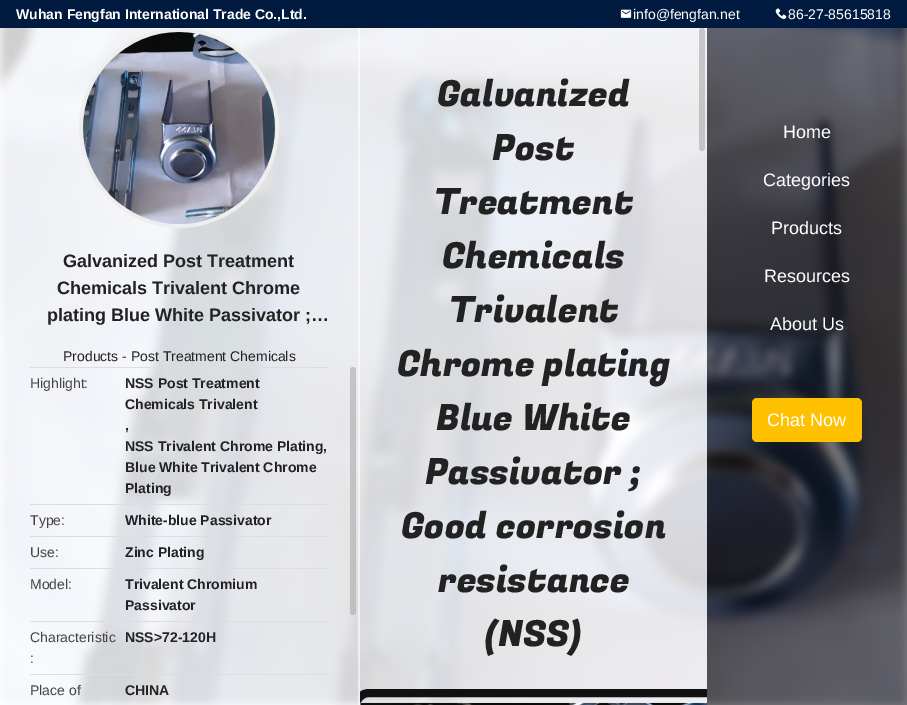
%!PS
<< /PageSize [907 705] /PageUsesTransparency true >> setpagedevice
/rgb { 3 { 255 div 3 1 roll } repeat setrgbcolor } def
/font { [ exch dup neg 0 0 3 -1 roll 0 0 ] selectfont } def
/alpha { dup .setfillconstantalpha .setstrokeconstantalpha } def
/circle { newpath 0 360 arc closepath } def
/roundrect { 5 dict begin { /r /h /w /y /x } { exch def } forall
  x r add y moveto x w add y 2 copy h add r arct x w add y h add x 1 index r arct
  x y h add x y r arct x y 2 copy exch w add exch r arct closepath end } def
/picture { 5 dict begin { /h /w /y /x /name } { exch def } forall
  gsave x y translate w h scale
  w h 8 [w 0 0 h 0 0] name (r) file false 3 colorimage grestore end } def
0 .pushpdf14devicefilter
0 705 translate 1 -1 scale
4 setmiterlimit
255 255 255 rgb
0 0 907 705 rectfill
0 27 63 rgb
0 0 907 28 rectfill
(img/1.rgb) 620 9 12 9 picture
(img/2.rgb) 775 8 12 12 picture
(img/3.rgb) 0 28 907 677 picture
0.8 alpha
255 255 255 rgb
0 28 360 677 rectfill
0.6 alpha
358 28 2 677 rectfill
1 alpha
238 238 238 rgb
4 setlinewidth
179 128 98 circle stroke
(img/4.rgb) 83 32 192 192 picture
[
  [30 367 298 1 221 221 221]
  [30 504 298 1 221 221 221]
  [30 536 298 1 221 221 221]
  [30 568 298 1 221 221 221]
  [30 621 298 1 221 221 221]
  [30 674 298 1 221 221 221]
] { aload pop rgb rectfill } forall
0.6 alpha
170 170 170 rgb
350 367 6 248 3 roundrect fill
0.8 alpha
255 255 255 rgb
360 28 347 677 rectfill
0.6 alpha
170 170 170 rgb
699 28 6 123 3 roundrect fill
0.5 alpha
0 0 0 rgb
707 28 200 677 rectfill
gsave
360 28 347 677 rectclip
1 alpha
17 17 17 rgb
8 setlinewidth
356 693 389 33 13 roundrect stroke
grestore
1 alpha
(img/5.rgb) 360 702 347 3 picture
255 192 0 rgb
752 398 110 44 5 roundrect fill
/LiberationSans-Bold 14 font
255 255 255 rgb
16 19 moveto (Wuhan Fengfan International Trade Co.,Ltd.) show
/LiberationSans-Regular 14 font
633 19 moveto (info@fengfan.net) show
788 19 moveto (86-27-85615818) show
/LiberationSans-Bold 18 font
34 34 34 rgb
[
  [(Galvanized Post Treatment) 63 267]
  [(Chemicals Trivalent Chrome) 57 294]
  [(plating Blue White Passivator ;…) 47 321]
] { aload pop moveto show } forall
/LiberationSans-Regular 14 font
63 361 moveto (Products - Post Treatment Chemicals) show
68 68 68 rgb
30 388 moveto (Highlight:) show
/LiberationSans-Bold 14 font
34 34 34 rgb
[
  [(NSS Post Treatment) 125 388]
  [(Chemicals Trivalent) 125 409]
  [(,) 125 430]
  [(NSS Trivalent Chrome Plating,) 125 451]
  [(Blue White Trivalent Chrome) 125 472]
  [(Plating) 125 493]
] { aload pop moveto show } forall
/LiberationSans-Regular 14 font
68 68 68 rgb
30 525 moveto (Type:) show
/LiberationSans-Bold 14 font
34 34 34 rgb
125 525 moveto (White-blue Passivator) show
/LiberationSans-Regular 14 font
68 68 68 rgb
30 557 moveto (Use:) show
/LiberationSans-Bold 14 font
34 34 34 rgb
125 557 moveto (Zinc Plating) show
/LiberationSans-Regular 14 font
68 68 68 rgb
30 589 moveto (Model:) show
/LiberationSans-Bold 14 font
34 34 34 rgb
125 589 moveto (Trivalent Chromium) show
125 610 moveto (Passivator) show
/LiberationSans-Regular 14 font
68 68 68 rgb
30 642 moveto (Characteristic) show
30 663 moveto (:) show
/LiberationSans-Bold 14 font
34 34 34 rgb
125 642 moveto (NSS>72-120H) show
/LiberationSans-Regular 14 font
68 68 68 rgb
30 695 moveto (Place of) show
/LiberationSans-Bold 14 font
34 34 34 rgb
125 695 moveto (CHINA) show
/FugazOne-Regular 36 font
[
  [(Galvanized) 437 106]
  [(Post) 492 160]
  [(Treatment) 434 214]
  [(Chemicals) 442 268]
  [(Trivalent) 449 322]
  [(Chrome plating) 397 376]
  [(Blue White) 436 430]
  [(Passivator ;) 425 484]
  [(Good corrosion) 401 538]
  [(resistance) 438 592]
  [(\(NSS\)) 485 646]
] { aload pop moveto show } forall
/LiberationSans-Regular 18 font
255 255 255 rgb
[
  [(Home) 783 138]
  [(Categories) 763 186]
  [(Products) 771 234]
  [(Resources) 764 282]
  [(About Us) 770 330]
  [(Chat Now) 767 426]
] { aload pop moveto show } forall
.poppdf14devicefilter showpage
